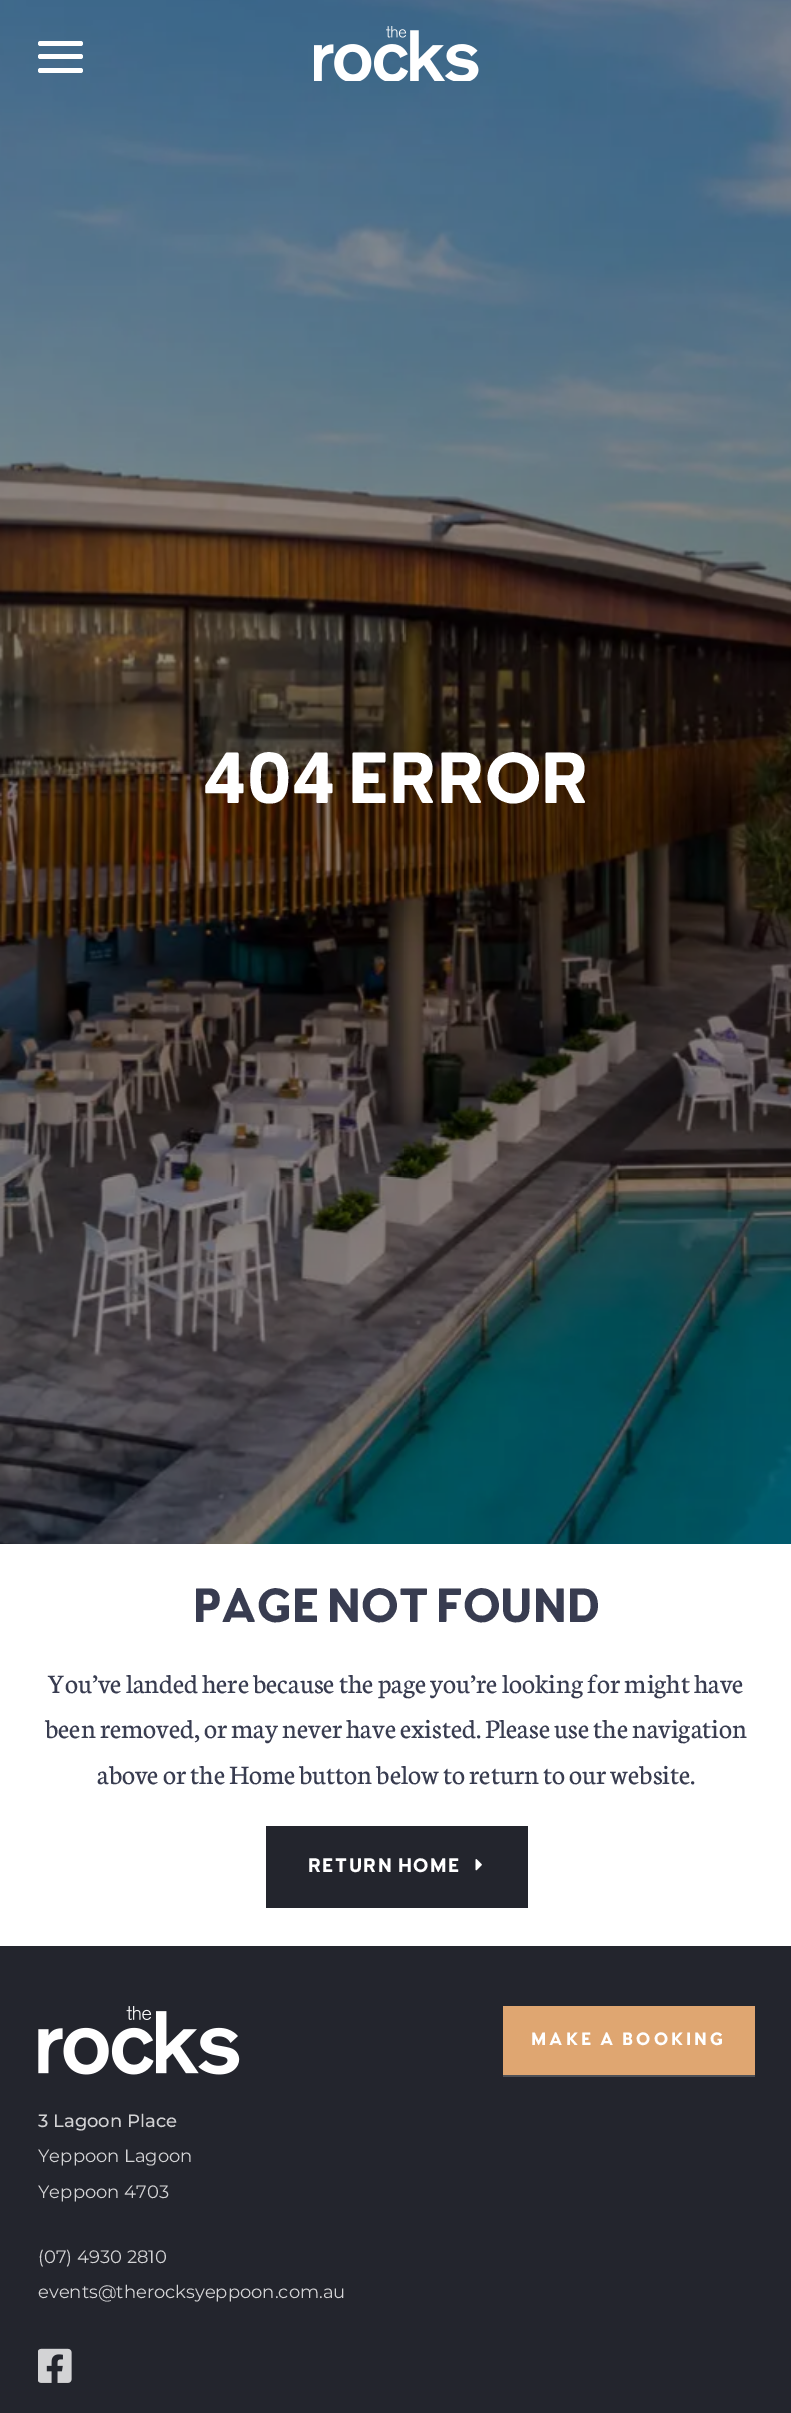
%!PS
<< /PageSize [791 2413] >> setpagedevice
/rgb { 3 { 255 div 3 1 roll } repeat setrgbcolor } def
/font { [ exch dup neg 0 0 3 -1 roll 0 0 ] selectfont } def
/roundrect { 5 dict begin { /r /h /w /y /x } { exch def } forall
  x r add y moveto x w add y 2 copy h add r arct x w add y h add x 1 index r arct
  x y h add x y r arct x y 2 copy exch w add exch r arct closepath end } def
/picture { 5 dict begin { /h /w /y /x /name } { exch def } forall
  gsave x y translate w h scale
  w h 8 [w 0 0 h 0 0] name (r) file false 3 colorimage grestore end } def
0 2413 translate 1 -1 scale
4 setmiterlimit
255 255 255 rgb
0 0 791 2413 rectfill
0 0 0 rgb
0 0 791 1544 rectfill
(img/2.rgb) 0 0 791 1544 picture
255 255 255 rgb
38 41 45 5 2.5 roundrect fill
38 54 45 5 2.5 roundrect fill
38 68 45 5 2.5 roundrect fill
(img/1.rgb) 314 26 165 55 picture
35 37 45 rgb
266 1826 262 82 rectfill
(img/3.rgb) 475 1859 7 12 picture
[
  [0 1946 791 467 35 37 45]
  [503 2075 252 2 79 81 87]
  [503 2006 252 69 223 166 113]
] { aload pop rgb rectfill } forall
(img/4.rgb) 38 2006 202 69 picture
(img/5.rgb) 38 2348 34 35 picture
/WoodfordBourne-Bold 72 font
255 255 255 rgb
202 803 moveto (404 ERROR) show
/WoodfordBourne-Bold 48 font
56 60 80 rgb
193 1622 moveto (PAGE NOT FOUND) show
/Neuton-Regular 28.5 font
[
  [(You’ve landed here because the page you’re looking for might have) 48 1693]
  [(been removed, or may never have existed. Please use the navigation) 45 1738]
  [(above or the Home button below to return to our website.) 97 1784]
] { aload pop moveto show } forall
/WoodfordBourne-Bold 19.5 font
255 255 255 rgb
308 1872 moveto 1.5 0 (RETURN HOME) ashow
/WoodfordBourne-Bold 18 font
531 2045 moveto 3 0 (MAKE A BOOKING) ashow
/Montserrat-Medium 18 font
211 211 213 rgb
38 2127 moveto (3 Lagoon Place) show
/Montserrat-Regular 18 font
[
  [(Yeppoon Lagoon) 38 2162]
  [(Yeppoon 4703) 38 2198]
  [(\(07\) 4930 2810) 38 2263]
  [(events@therocksyeppoon.com.au) 38 2298]
] { aload pop moveto show } forall
showpage
